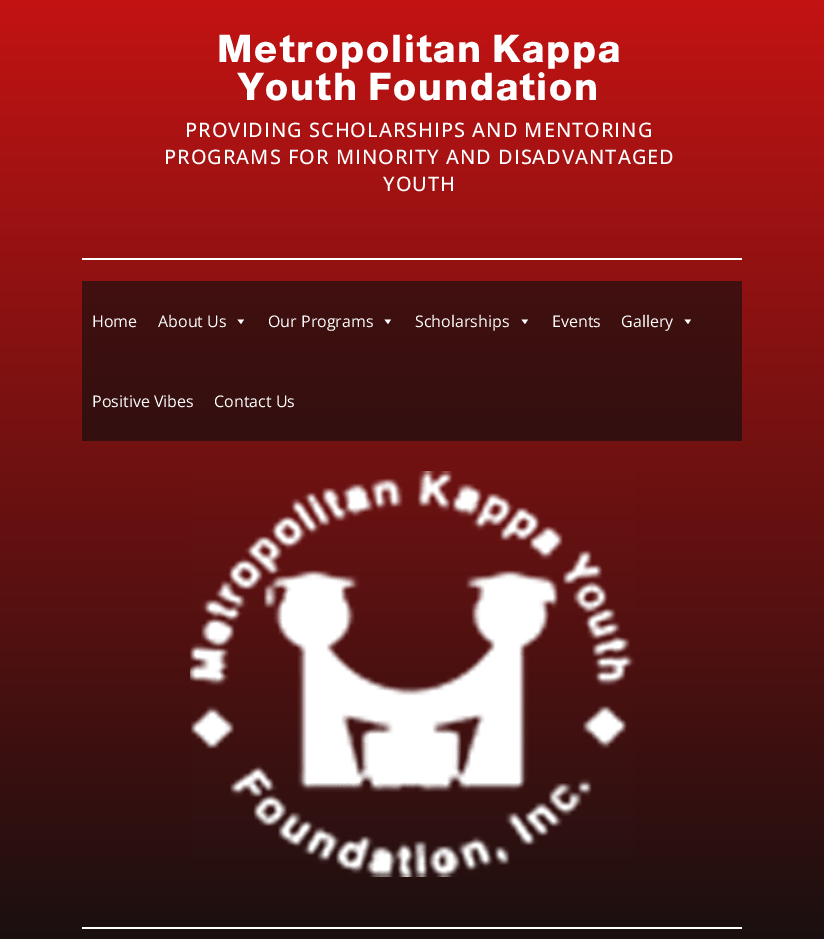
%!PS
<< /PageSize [824 939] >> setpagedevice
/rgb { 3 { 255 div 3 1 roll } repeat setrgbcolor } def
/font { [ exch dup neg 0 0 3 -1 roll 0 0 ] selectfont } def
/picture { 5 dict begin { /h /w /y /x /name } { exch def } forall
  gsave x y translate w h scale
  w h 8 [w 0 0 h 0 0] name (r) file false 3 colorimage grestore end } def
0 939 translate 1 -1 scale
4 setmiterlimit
255 255 255 rgb
0 0 824 939 rectfill
gsave 0 0 moveto 824 0 lineto 824 939 lineto 0 939 lineto closepath clip newpath
<< /ShadingType 2 /ColorSpace /DeviceRGB /Coords [412 0 412 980] /Extend [true true] /Function << /FunctionType 2 /Domain [0 1] /C0 [0.765 0.075 0.075] /C1 [0.075 0.059 0.059] /N 1 >> >> shfill grestore
82 258 660 2 rectfill
gsave 82 281 moveto 742 281 lineto 742 441 lineto 82 441 lineto closepath clip newpath
<< /ShadingType 2 /ColorSpace /DeviceRGB /Coords [412 281 412 441] /Extend [true true] /Function << /FunctionType 2 /Domain [0 1] /C0 [0.259 0.063 0.063] /C1 [0.2 0.059 0.059] /N 1 >> >> shfill grestore
244 319.5 moveto 241 324 lineto 237.5 319.5 lineto closepath fill
391 319.5 moveto 388 324 lineto 384.5 319.5 lineto closepath fill
528 319.5 moveto 525 324 lineto 521.5 319.5 lineto closepath fill
691 319.5 moveto 688 324 lineto 684.5 319.5 lineto closepath fill
(img/1.rgb) 190 471 445 406 picture
82 927 660 2 rectfill
/Almarai-ExtraBold 38 font
217 62 moveto 2 0 (Metropolitan Kappa) ashow
238 100 moveto 2 0 (Youth Foundation) ashow
/OpenSans-Medium 20 font
185 137 moveto 1 0 (PROVIDING SCHOLARSHIPS AND MENTORING) ashow
164 164 moveto 1 0 (PROGRAMS FOR MINORITY AND DISADVANTAGED) ashow
383 191 moveto 1 0 (YOUTH) ashow
/OpenSans-Regular 16 font
[
  [(Home) 92 327]
  [(About Us) 158 327]
  [(Our Programs) 268 327]
  [(Scholarships) 415 327]
  [(Events) 552 327]
  [(Gallery) 621 327]
  [(Positive Vibes) 92 407]
  [(Contact Us) 214 407]
] { aload pop moveto show } forall
showpage
